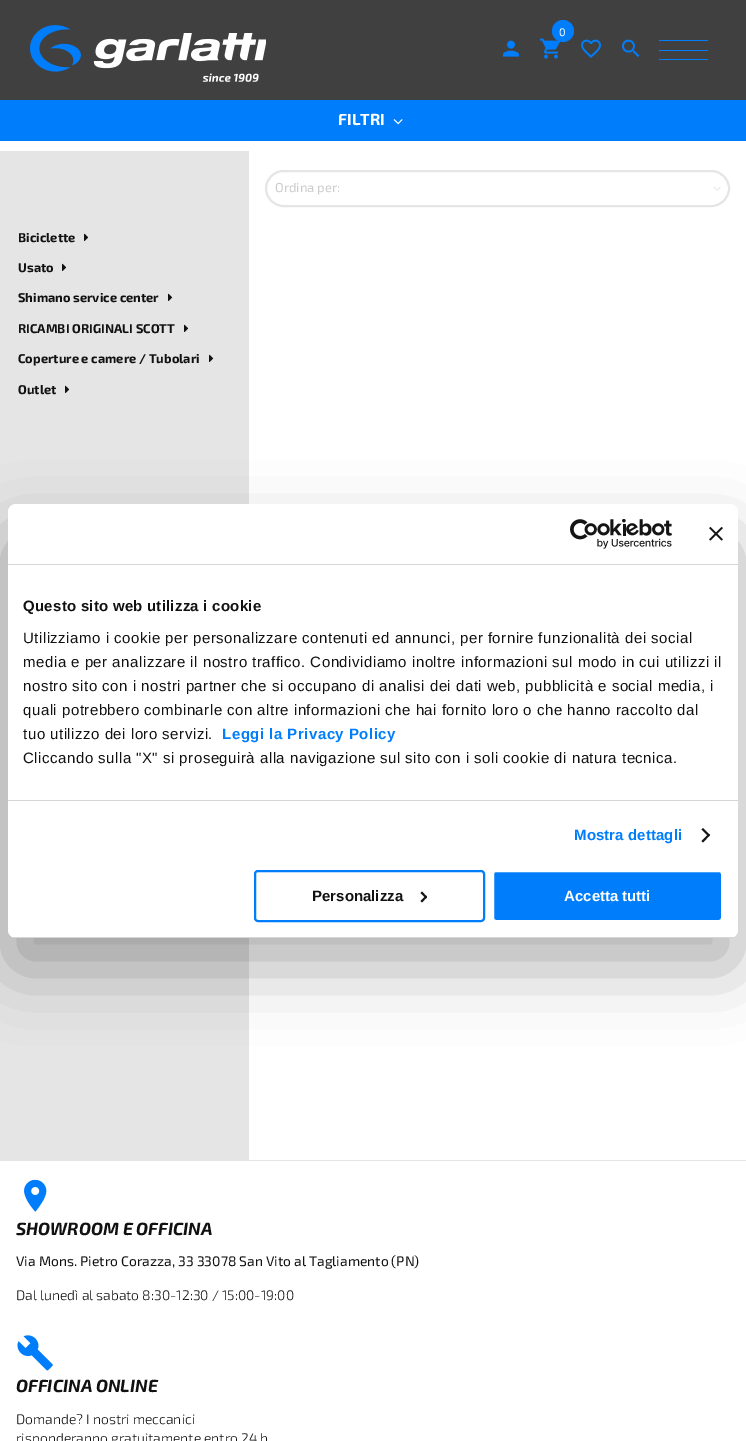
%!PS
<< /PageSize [746 1441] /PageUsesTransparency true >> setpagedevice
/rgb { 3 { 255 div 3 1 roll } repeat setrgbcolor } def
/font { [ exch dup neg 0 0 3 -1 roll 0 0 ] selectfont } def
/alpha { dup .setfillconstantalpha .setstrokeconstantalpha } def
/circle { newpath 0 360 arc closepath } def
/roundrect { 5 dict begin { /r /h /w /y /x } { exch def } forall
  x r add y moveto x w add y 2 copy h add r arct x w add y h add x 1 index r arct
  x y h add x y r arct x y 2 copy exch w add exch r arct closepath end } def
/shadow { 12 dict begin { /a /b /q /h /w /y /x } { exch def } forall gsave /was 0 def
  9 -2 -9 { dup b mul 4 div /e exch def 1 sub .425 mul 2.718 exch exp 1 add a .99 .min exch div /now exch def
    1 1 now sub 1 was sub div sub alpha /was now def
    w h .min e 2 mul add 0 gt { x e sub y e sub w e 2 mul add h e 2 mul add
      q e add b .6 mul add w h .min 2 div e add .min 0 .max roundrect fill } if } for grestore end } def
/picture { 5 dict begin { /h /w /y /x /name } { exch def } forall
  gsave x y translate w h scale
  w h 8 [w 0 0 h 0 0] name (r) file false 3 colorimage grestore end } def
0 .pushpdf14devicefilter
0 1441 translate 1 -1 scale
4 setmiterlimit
255 255 255 rgb
0 0 746 1441 rectfill
64 64 64 rgb
0 0 746 100 rectfill
(img/1.rgb) 30 25 236 57 picture
(img/2.rgb) 540 38 20 21 picture
0 125 250 rgb
563 31 11 circle fill
(img/3.rgb) 503 40 16 17 picture
(img/4.rgb) 581 39 20 19 picture
(img/5.rgb) 622 39 18 18 picture
[
  [659 40 49 1 0 125 250]
  [659 50 49 1 0 125 250]
  [659 59 49 1 0 125 250]
  [0 100 746 41 0 125 250]
] { aload pop rgb rectfill } forall
(img/6.rgb) 393 119 10 6 picture
229 229 229 rgb
0 1160 746 1 rectfill
0 151 249 1009 rectfill
2 setlinewidth
266 171 463 35 17.5 roundrect stroke
(img/7.rgb) 713 186 8 5 picture
(img/8.rgb) 84 233 5 8 picture
(img/8.rgb) 62 263 5 8 picture
(img/8.rgb) 168 293 5 8 picture
(img/8.rgb) 184 324 5 8 picture
(img/8.rgb) 209 354 5 8 picture
(img/8.rgb) 65 385 5 8 picture
(img/9.rgb) 24 1179 23 33 picture
(img/10.rgb) 17 1335 36 36 picture
0 0 0 rgb
8 536 730 434 8 34 0.3 shadow
255 255 255 rgb
8 504 730 434 8 roundrect fill
214 214 214 rgb
8 564 730 1 rectfill
(img/11.rgb) 570 519 102 30 picture
(img/12.rgb) 709 527 14 14 picture
8 800 730 1 rectfill
20 20 20 rgb
703 828 moveto 710 835 lineto 708.5 836.5 lineto 701.5 829.5 lineto closepath fill
708.5 834 moveto 710 835 lineto 703 842.5 lineto 701.5 841 lineto closepath fill
gsave
8 504 730 434 8 roundrect clip newpath
214 214 214 rgb
8 937 730 1 rectfill
grestore
0 125 250 rgb
255 871 229 50 3 roundrect stroke
20 20 20 rgb
422 891.5 moveto 427 897 lineto 426 898.5 lineto 420.5 893 lineto closepath fill
426 895.5 moveto 427 897 lineto 422 902.5 lineto 420.5 901 lineto closepath fill
0 125 250 rgb
493 871 229 50 3 roundrect gsave fill grestore
255 255 255 rgb
stroke
/Exo2-Regular 11 font
559 36 moveto (0) show
/Exo2-Bold 16 font
338 125 moveto (FILTRI) show
/Exo2-Regular 13 font
204 204 204 rgb
275 192 moveto (Ordina per:) show
/Exo2-Bold 12.75 font
17 17 17 rgb
[
  [(Biciclette) 18 242]
  [(Usato) 18 272]
  [(Shimano service center) 18 302]
  [(RICAMBI ORIGINALI SCOTT) 18 333]
  [(Coperture e camere / Tubolari) 18 363]
  [(Outlet) 18 394]
] { aload pop moveto show } forall
/Exo2-BoldItalic 17.6 font
16 1235 moveto (SHOWROOM E OFFICINA) show
/Exo2-Regular 13.9 font
16 1266 moveto (Via Mons. Pietro Corazza, 33 33078 San Vito al Tagliamento \(PN\)) show
/Exo2-Light 13.9 font
16 1300 moveto (Dal lunedì al sabato 8:30-12:30 / 15:00-19:00) show
/Exo2-BoldItalic 17.6 font
16 1392 moveto (OFFICINA ONLINE) show
/Exo2-Light 13.9 font
16 1424 moveto (Domande? I nostri meccanici) show
16 1443 moveto (risponderanno gratuitamente entro 24 h) show
/LiberationSans-Bold 15 font
23 611 moveto 0.25 0 (Questo sito web utilizza i cookie) ashow
/LiberationSans-Regular 15 font
23 643 moveto 0.5 0 (Utilizziamo i cookie per personalizzare contenuti ed annunci, per fornire funzionalità dei social) ashow
23 667 moveto 0.5 0 (media e per analizzare il nostro traffico. Condividiamo inoltre informazioni sul modo in cui utilizzi il) ashow
23 691 moveto 0.5 0 (nostro sito con i nostri partner che si occupano di analisi dei dati web, pubblicità e social media, i) ashow
23 715 moveto 0.5 0 (quali potrebbero combinarle con altre informazioni che hai fornito loro o che hanno raccolto dal) ashow
23 739 moveto 0.5 0 (tuo utilizzo dei loro servizi.) ashow
/LiberationSans-Bold 15 font
0 125 250 rgb
222 739 moveto 0.5 0 (Leggi la Privacy Policy) ashow
/LiberationSans-Regular 15 font
17 17 17 rgb
23 763 moveto 0.5 0 (Cliccando sulla "X" si proseguirà alla navigazione sul sito con i soli cookie di natura tecnica.) ashow
/LiberationSans-Bold 15 font
0 125 250 rgb
574 840 moveto 0.1 0 (Mostra dettagli) ashow
17 17 17 rgb
312 901 moveto (Personalizza) show
255 255 255 rgb
564 901 moveto (Accetta tutti) show
.poppdf14devicefilter showpage
